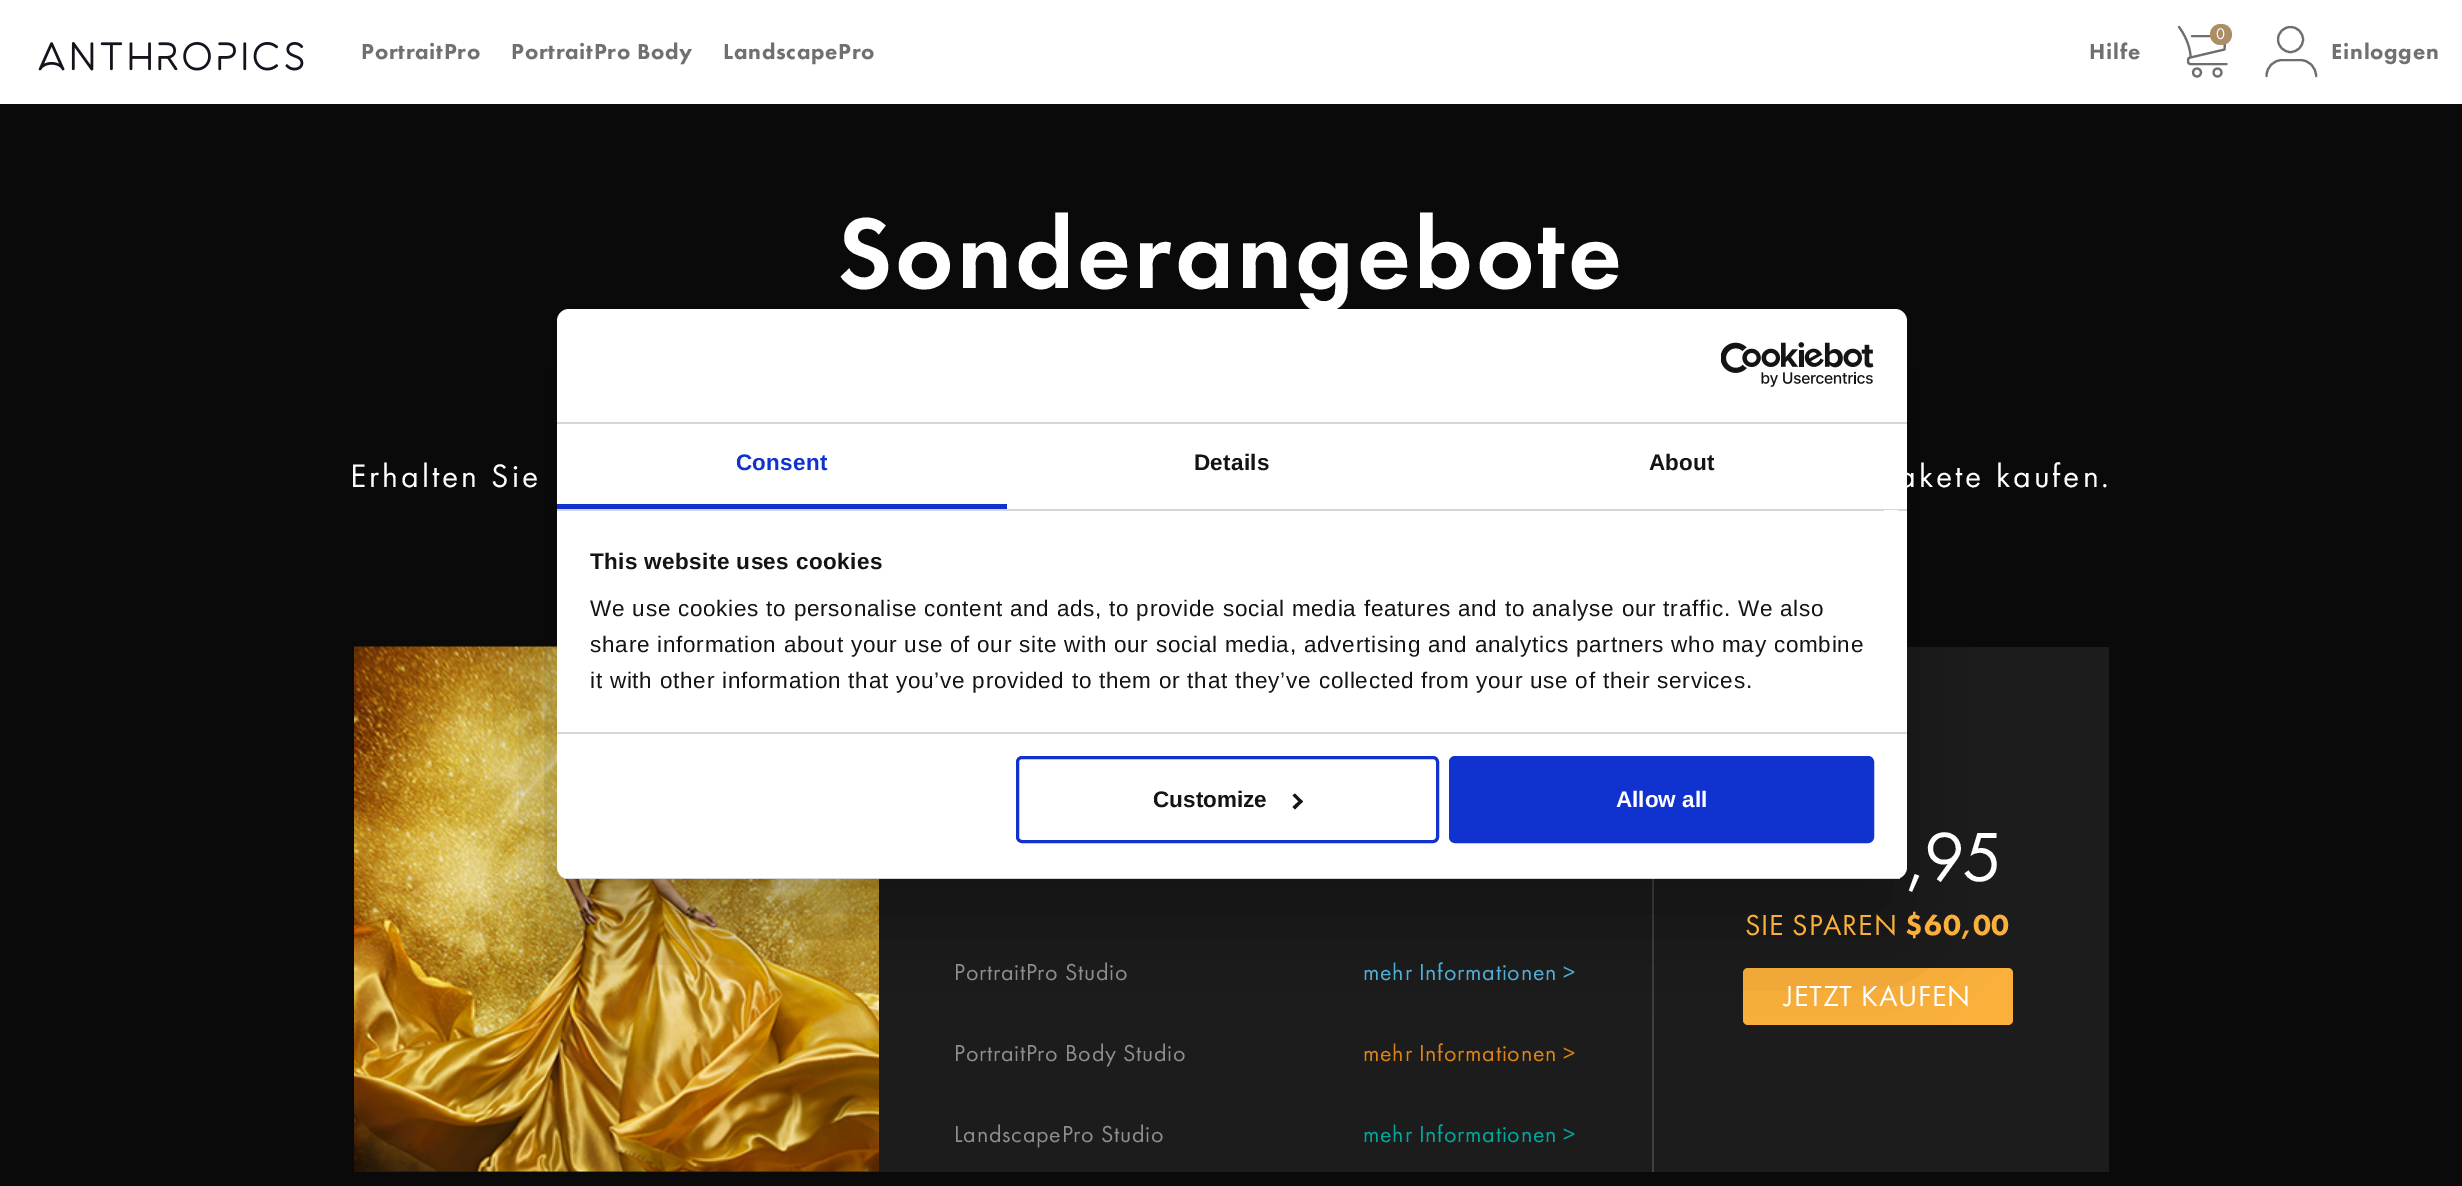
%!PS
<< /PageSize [2462 1186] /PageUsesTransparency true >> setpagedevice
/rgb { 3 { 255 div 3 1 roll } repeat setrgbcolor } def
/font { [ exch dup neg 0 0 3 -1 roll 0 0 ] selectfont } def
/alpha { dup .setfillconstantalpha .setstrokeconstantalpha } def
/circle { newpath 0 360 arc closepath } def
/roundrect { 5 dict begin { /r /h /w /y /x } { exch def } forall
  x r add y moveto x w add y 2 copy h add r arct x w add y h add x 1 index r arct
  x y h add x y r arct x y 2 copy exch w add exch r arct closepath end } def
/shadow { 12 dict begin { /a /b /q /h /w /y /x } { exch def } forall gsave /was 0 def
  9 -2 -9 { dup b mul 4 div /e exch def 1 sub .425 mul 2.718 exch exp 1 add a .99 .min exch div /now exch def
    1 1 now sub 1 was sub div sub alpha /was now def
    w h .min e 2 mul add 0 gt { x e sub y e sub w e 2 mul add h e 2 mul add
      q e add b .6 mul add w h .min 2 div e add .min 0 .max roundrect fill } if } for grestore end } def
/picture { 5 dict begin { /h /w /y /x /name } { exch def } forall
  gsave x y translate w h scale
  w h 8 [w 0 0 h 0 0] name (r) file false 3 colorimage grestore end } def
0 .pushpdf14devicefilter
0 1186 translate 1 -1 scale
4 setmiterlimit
255 255 255 rgb
0 0 2462 1186 rectfill
(img/1.rgb) 38 42 266 29 picture
110 110 110 rgb
2.1 setlinewidth
1 setlinecap
1 setlinejoin
2179 27 moveto 2179 27 2190 41 2190.5 56.5 curveto 2226.5 64 moveto 2190.5 64 lineto 2189 64 2188 63 2188 61.5 curveto 2188 60 lineto 2188 58.5 2189 57.5 2190.5 57.5 curveto 2224.5 49.5 lineto 2225.5 36 lineto 2192 36 lineto stroke
172 142 102 rgb
2210 24 22 21 10.5 roundrect fill
110 110 110 rgb
0 setlinecap
0 setlinejoin
2197 72.5 4 circle stroke
2217.5 72.5 4 circle stroke
2290.5 39.5 12.5 circle stroke
1 setlinecap
2266.5 76 moveto 2266.5 67 2273.5 60 2282.5 60 curveto 2300 60 lineto 2309 60 2316 67 2316 76 curveto stroke
10 10 10 rgb
0 104 2462 1082 rectfill
28 28 28 rgb
354 647 1755 525 rectfill
(img/2.rgb) 354 646 525 526 picture
64 64 64 rgb
1652 879 2 293 rectfill
251 176 59 rgb
1743 968 270 57 5 roundrect fill
0 0 0 rgb
557 357 1350 570 12 51 0.3 shadow
255 255 255 rgb
557 309 1350 570 12 roundrect fill
214 214 214 rgb
557 422 1350 2 rectfill
(img/3.rgb) 1721 342 153 45 picture
[
  [557 509 1350 2 214 214 214]
  [557 504 450 5 16 50 207]
  [557 732 1350 2 214 214 214]
  [1884 510 14 1 255 255 255]
] { aload pop rgb rectfill } forall
gsave
557 309 1350 570 12 roundrect clip newpath
214 214 214 rgb
557 878 1350 1 rectfill
grestore
16 50 207 rgb
3 setlinewidth
0 setlinecap
1017.5 757.5 420 84 4.5 roundrect stroke
20 20 20 rgb
1295 793.5 moveto 1303 801.5 lineto 1300.5 803.5 lineto 1292.5 795.5 lineto closepath fill
1300.5 799.5 moveto 1303 801.5 lineto 1295 809.5 lineto 1292.5 807 lineto closepath fill
16 50 207 rgb
1450.5 757.5 422 84 4.5 roundrect gsave fill grestore
stroke
/FuturaPT-Black 22.5 font
112 112 112 rgb
361 59 moveto 0.75 0 (PortraitPro) ashow
511 59 moveto 0.75 0 (PortraitPro Body) ashow
723 59 moveto 0.75 0 (LandscapePro) ashow
/FuturaPT-Regular 16 font
255 255 255 rgb
2216 39 moveto 0.75 0 (0) ashow
/FuturaPT-Black 22.5 font
112 112 112 rgb
2089 59 moveto 0.75 0 (Hilfe) ashow
2331 59 moveto 0.75 0 (Einloggen) ashow
/FuturaPT-Medium 103.5 font
255 255 255 rgb
837 288 moveto 3 0 (Sonderangebote) ashow
/FuturaPT-Regular 33.75 font
350 487 moveto 3 0 (Erhalten Sie) ashow
1898 487 moveto 3 0 (akete kaufen.) ashow
/FuturaPT-Regular 72 font
1907 881 moveto -3 0 (,95) ashow
/FuturaPT-Regular 30 font
251 176 59 rgb
1745 935 moveto 0.75 0 (SIE SPAREN) ashow
/FuturaPT-Black 30 font
1905 935 moveto 0.75 0 ($60,00) ashow
/FuturaPT-Regular 30 font
255 255 255 rgb
1784 1006 moveto 0.75 0 (JETZT KAUFEN) ashow
/FuturaPT-Regular 24 font
142 142 142 rgb
954 980 moveto 0.75 0 (PortraitPro Studio) ashow
80 175 213 rgb
1363 980 moveto 0.75 0 (mehr Informationen >) ashow
142 142 142 rgb
954 1061 moveto 0.75 0 (PortraitPro Body Studio) ashow
220 132 22 rgb
1363 1061 moveto 0.75 0 (mehr Informationen >) ashow
142 142 142 rgb
954 1142 moveto 0.75 0 (LandscapePro Studio) ashow
0 169 157 rgb
1363 1142 moveto 0.75 0 (mehr Informationen >) ashow
/LiberationSans-Bold 22.5 font
16 50 207 rgb
736 470 moveto 0.25 0 (Consent) ashow
20 20 20 rgb
1194 470 moveto 0.25 0 (Details) ashow
1649 470 moveto 0.25 0 (About) ashow
590 569 moveto 0.4 0 (This website uses cookies) ashow
/LiberationSans-Regular 22.5 font
590 616 moveto 0.75 0 (We use cookies to personalise content and ads, to provide social media features and to analyse our traffic. We also) ashow
590 652 moveto 0.75 0 (share information about your use of our site with our social media, advertising and analytics partners who may combine) ashow
590 688 moveto 0.75 0 (it with other information that you’ve provided to them or that they’ve collected from your use of their services.) ashow
/LiberationSans-Bold 22.5 font
1153 807 moveto (Customize) show
255 255 255 rgb
1616 807 moveto (Allow all) show
.poppdf14devicefilter showpage
